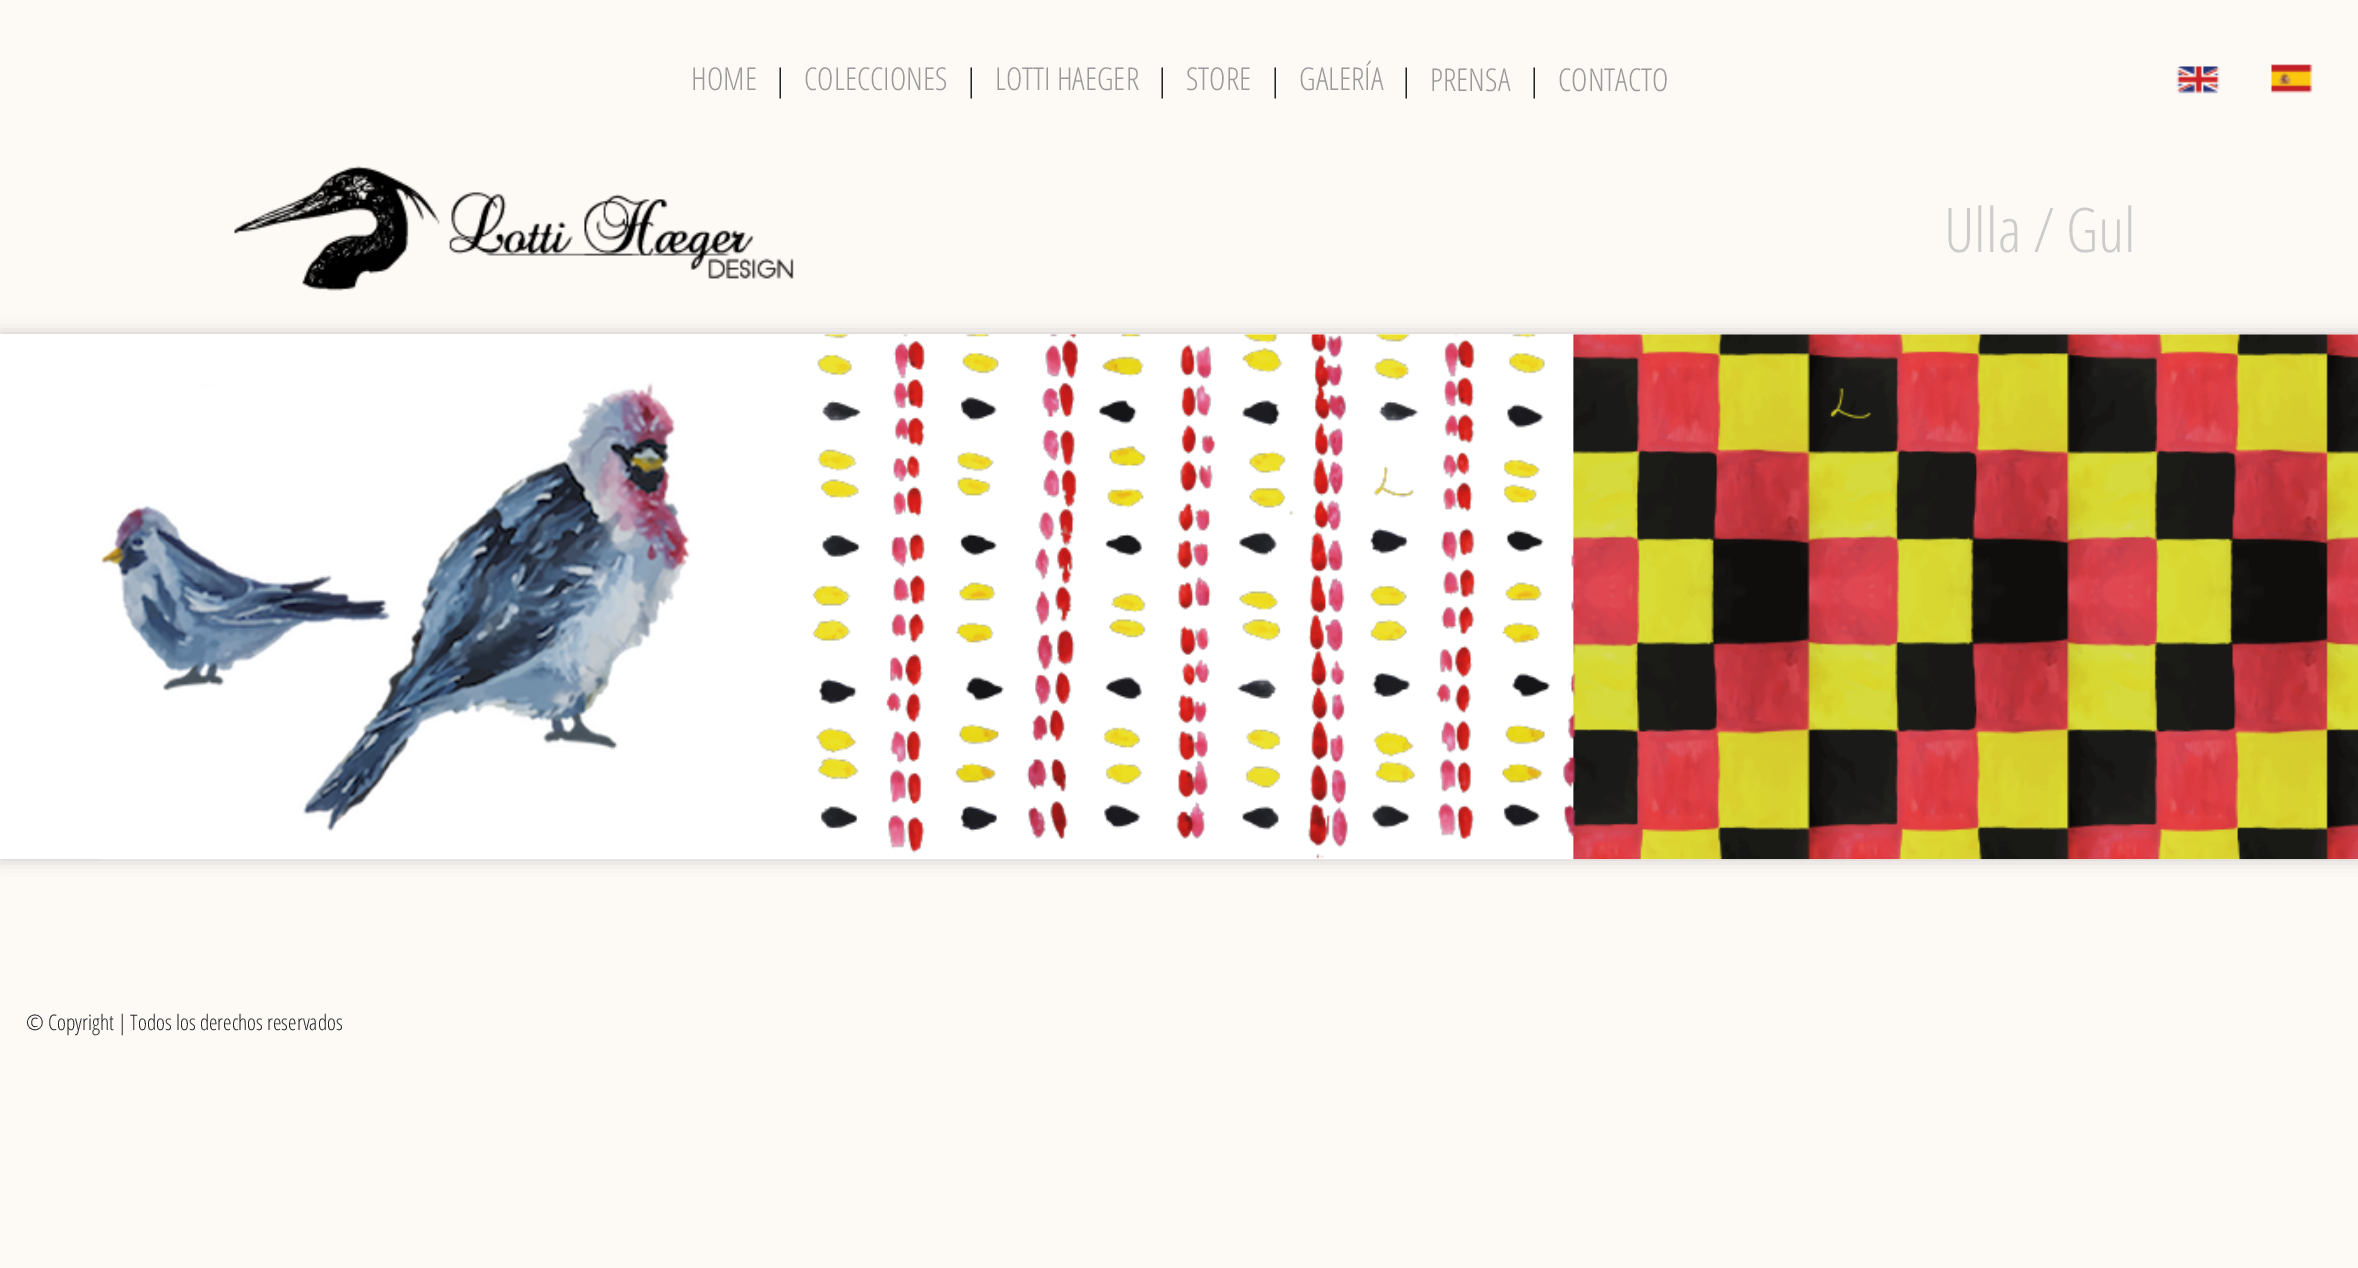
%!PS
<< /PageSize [2358 1268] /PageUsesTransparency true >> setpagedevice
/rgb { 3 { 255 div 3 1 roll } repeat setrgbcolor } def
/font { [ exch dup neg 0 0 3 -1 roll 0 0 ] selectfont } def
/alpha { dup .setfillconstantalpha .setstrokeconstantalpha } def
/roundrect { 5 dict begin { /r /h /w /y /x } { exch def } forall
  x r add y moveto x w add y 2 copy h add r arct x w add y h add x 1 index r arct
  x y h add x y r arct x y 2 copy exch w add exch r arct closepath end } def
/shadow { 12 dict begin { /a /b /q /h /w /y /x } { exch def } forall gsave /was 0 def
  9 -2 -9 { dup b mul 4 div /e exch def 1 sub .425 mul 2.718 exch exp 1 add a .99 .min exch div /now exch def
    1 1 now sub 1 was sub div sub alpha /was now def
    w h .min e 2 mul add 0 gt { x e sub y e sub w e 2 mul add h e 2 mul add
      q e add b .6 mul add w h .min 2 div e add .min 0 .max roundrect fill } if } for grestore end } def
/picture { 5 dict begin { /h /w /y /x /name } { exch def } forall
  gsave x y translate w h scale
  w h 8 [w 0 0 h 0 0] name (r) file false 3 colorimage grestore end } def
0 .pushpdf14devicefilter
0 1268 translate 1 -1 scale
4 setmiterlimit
253 249 245 rgb
0 0 2358 1268 rectfill
(img/1.rgb) 2176 66 44 28 picture
(img/2.rgb) 2271 64 42 30 picture
(img/3.rgb) 234 166 560 125 picture
0 0 0 rgb
0 334 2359 525 0 8 0.2 shadow
255 255 255 rgb
0 334 2358 525 rectfill
(img/4.rgb) 101 334 2257 526 picture
/OpenSansCondensed-Light 31.5 font
153 153 153 rgb
691 90 moveto (HOME) show
/OpenSansCondensed-Light 31 font
33 37 41 rgb
774 91 moveto (|) show
/OpenSansCondensed-Light 31.5 font
153 153 153 rgb
804 90 moveto (COLECCIONES) show
/OpenSansCondensed-Light 31 font
33 37 41 rgb
965 91 moveto (|) show
/OpenSansCondensed-Light 31.5 font
153 153 153 rgb
995 90 moveto (LOTTI HAEGER) show
/OpenSansCondensed-Light 31 font
33 37 41 rgb
1156 91 moveto (|) show
/OpenSansCondensed-Light 31.5 font
153 153 153 rgb
1186 90 moveto (STORE) show
/OpenSansCondensed-Light 31 font
33 37 41 rgb
1269 91 moveto (|) show
/OpenSansCondensed-Light 31.5 font
153 153 153 rgb
1299 90 moveto (GALERÍA) show
/OpenSansCondensed-Light 31 font
33 37 41 rgb
1400 91 moveto (|) show
/OpenSansCondensed-Light 31.5 font
153 153 153 rgb
1430 91 moveto (PRENSA) show
/OpenSansCondensed-Light 31 font
33 37 41 rgb
1528 91 moveto (|) show
/OpenSansCondensed-Light 31.5 font
153 153 153 rgb
1558 91 moveto (CONTACTO) show
/OpenSansCondensed-Light 61.5 font
204 204 204 rgb
1944 252 moveto (Ulla / Gul) show
/OpenSansCondensed-Light 21.5 font
33 37 41 rgb
26 1030 moveto (© Copyright | Todos los derechos reservados) show
.poppdf14devicefilter showpage
